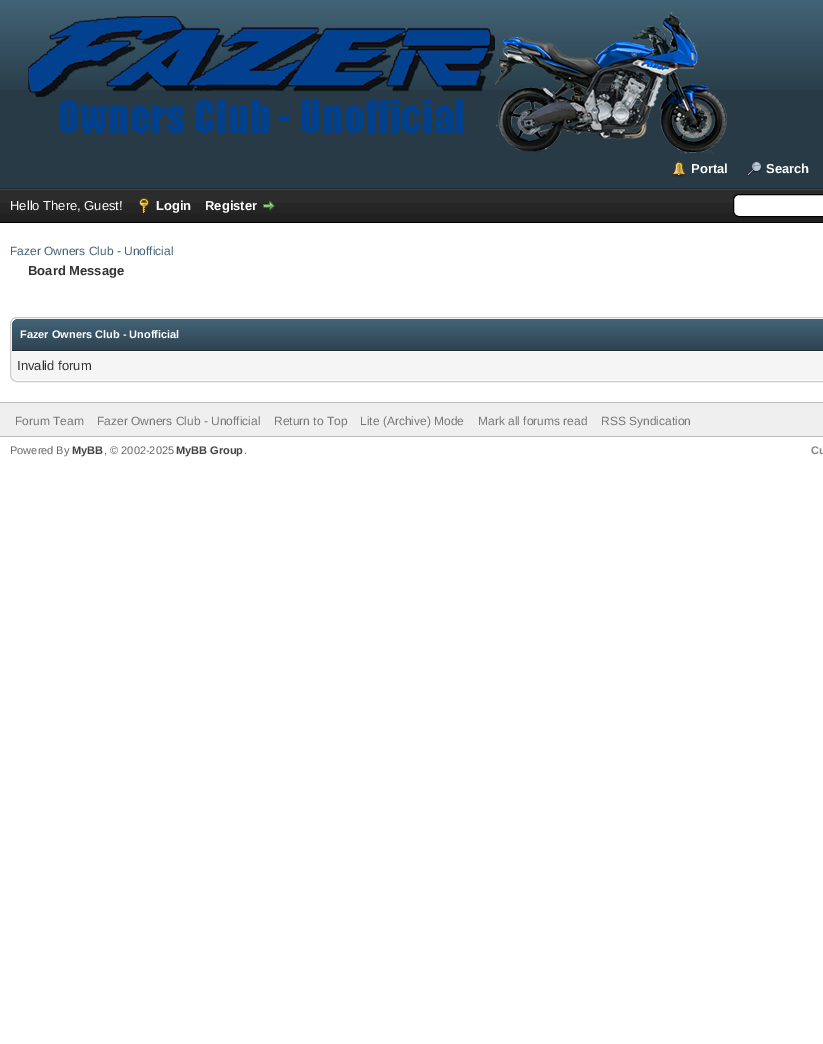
%!PS
<< /PageSize [823 1044] >> setpagedevice
/rgb { 3 { 255 div 3 1 roll } repeat setrgbcolor } def
/font { [ exch dup neg 0 0 3 -1 roll 0 0 ] selectfont } def
/roundrect { 5 dict begin { /r /h /w /y /x } { exch def } forall
  x r add y moveto x w add y 2 copy h add r arct x w add y h add x 1 index r arct
  x y h add x y r arct x y 2 copy exch w add exch r arct closepath end } def
/picture { 5 dict begin { /h /w /y /x /name } { exch def } forall
  gsave x y translate w h scale
  w h 8 [w 0 0 h 0 0] name (r) file false 3 colorimage grestore end } def
0 1044 translate 1 -1 scale
4 setmiterlimit
255 255 255 rgb
0 0 823 1044 rectfill
39 58 70 rgb
0 90 823 98 rectfill
(img/1.rgb) 0 0 823 90 picture
29 43 52 rgb
0 188 823 1 rectfill
(img/2.rgb) 28 12 699 142 picture
(img/3.rgb) 672 161 14 16 picture
(img/4.rgb) 747 161 15 15 picture
(img/5.rgb) 0 190 823 32 picture
68 68 68 rgb
0 189 823 1 rectfill
0 0 0 rgb
0 222 823 1 rectfill
(img/6.rgb) 139 198 10 15 picture
(img/7.rgb) 263 201 12 10 picture
255 255 255 rgb
733.5 194.5 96 22 5.5 roundrect gsave fill grestore
0 0 0 rgb
stroke
204 204 204 rgb
10.5 317.5 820 64 6.5 roundrect stroke
(img/8.rgb) 12 319 811 31 picture
29 43 52 rgb
12 350 811 1 rectfill
245 245 245 rgb
12 351 moveto 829 351 lineto 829 374 lineto 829 377.5 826.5 380 823 380 curveto 18 380 lineto 14.5 380 12 377.5 12 374 curveto closepath fill
[
  [12 351 811 1 255 255 255]
  [0 403 823 33 239 239 239]
  [0 402 823 1 187 187 187]
  [0 436 823 1 187 187 187]
] { aload pop rgb rectfill } forall
/LiberationSans-Bold 13 font
255 255 255 rgb
691 173 moveto (Portal) show
766 173 moveto (Search) show
/LiberationSans-Regular 13 font
10 210 moveto (Hello There, Guest!) show
/LiberationSans-Bold 13 font
156 210 moveto (Login) show
205 210 moveto (Register) show
/LiberationSans-Regular 12 font
66 98 118 rgb
10 255 moveto (Fazer Owners Club - Unofficial) show
/LiberationSans-Bold 13 font
51 51 51 rgb
28 275 moveto (Board Message) show
/LiberationSans-Bold 11 font
255 255 255 rgb
20 338 moveto (Fazer Owners Club - Unofficial) show
/LiberationSans-Regular 13 font
51 51 51 rgb
17 370 moveto (Invalid forum) show
/LiberationSans-Regular 12 font
119 119 119 rgb
[
  [(Forum Team) 15 425]
  [(Fazer Owners Club - Unofficial) 97 425]
  [(Return to Top) 274 425]
  [(Lite \(Archive\) Mode) 360 425]
  [(Mark all forums read) 478 425]
  [(RSS Syndication) 601 425]
] { aload pop moveto show } forall
/LiberationSans-Regular 11 font
102 102 102 rgb
10 454 moveto (Powered By) show
/LiberationSans-Bold 11 font
68 68 68 rgb
72 454 moveto (MyBB) show
/LiberationSans-Regular 11 font
102 102 102 rgb
104 454 moveto (, © 2002-2025) show
/LiberationSans-Bold 11 font
68 68 68 rgb
176 454 moveto (MyBB Group) show
/LiberationSans-Regular 11 font
102 102 102 rgb
244 454 moveto (.) show
/LiberationSans-Bold 11 font
136 136 136 rgb
811 454 moveto (Cu) show
showpage
